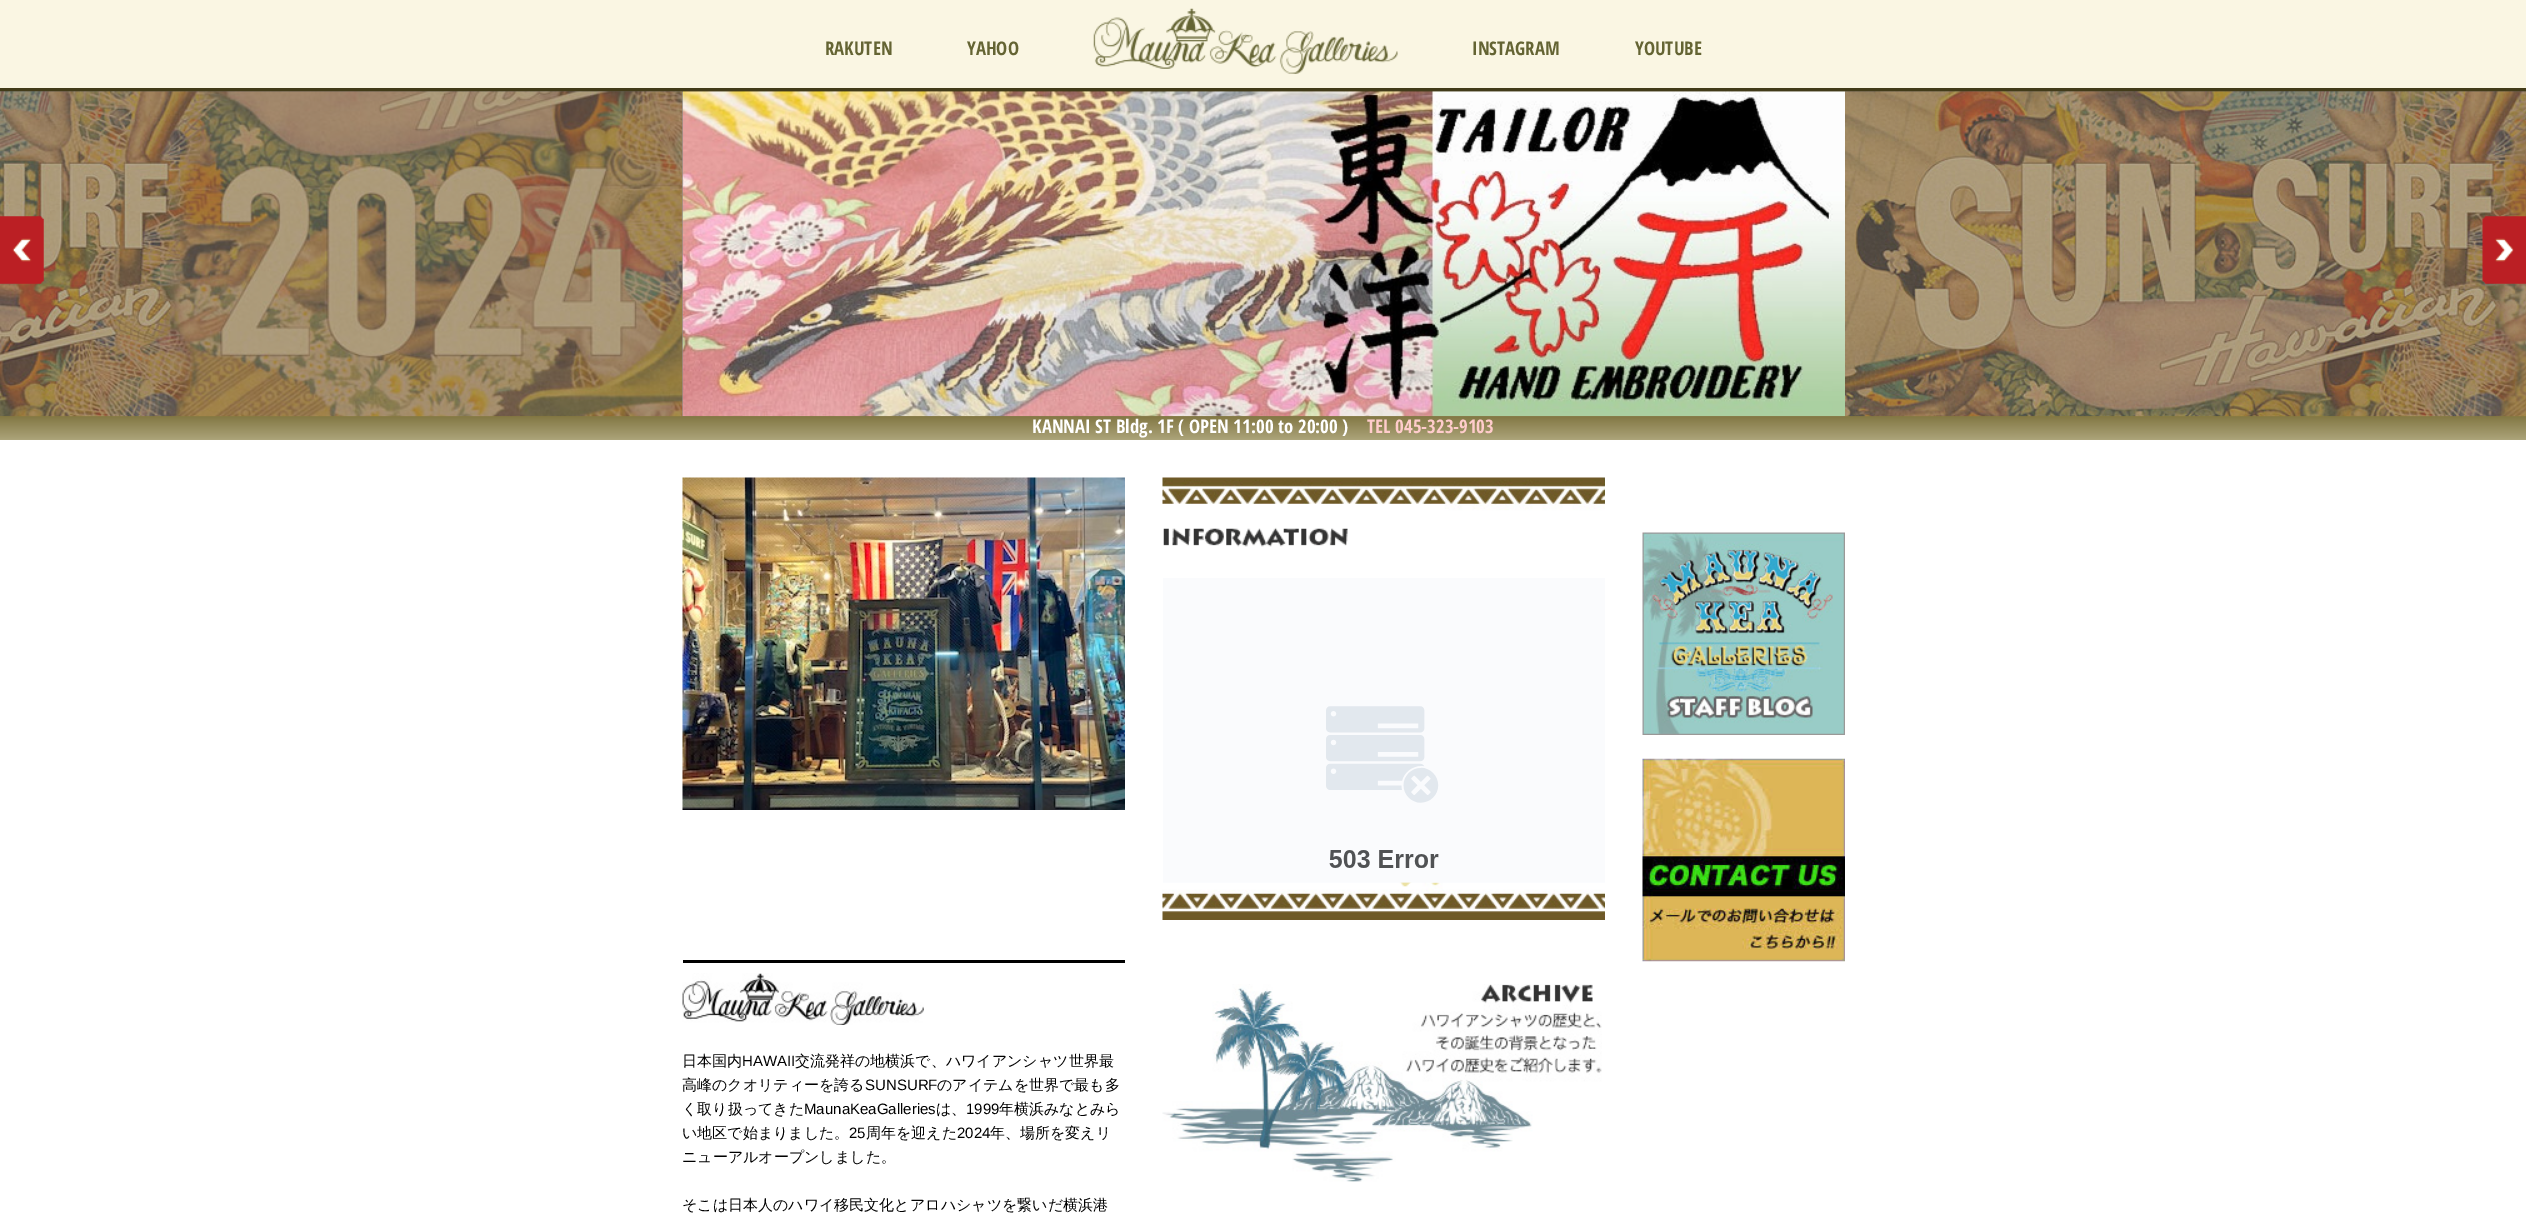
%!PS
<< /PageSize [2526 1222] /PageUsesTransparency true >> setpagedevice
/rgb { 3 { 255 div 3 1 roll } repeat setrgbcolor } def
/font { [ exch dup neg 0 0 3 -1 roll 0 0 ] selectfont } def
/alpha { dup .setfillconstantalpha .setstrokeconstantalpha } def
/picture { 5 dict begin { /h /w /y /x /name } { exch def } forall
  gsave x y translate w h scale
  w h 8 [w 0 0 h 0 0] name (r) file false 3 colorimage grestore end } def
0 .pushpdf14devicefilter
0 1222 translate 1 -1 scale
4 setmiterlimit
255 255 255 rgb
0 0 2526 1222 rectfill
[
  [0 0 2526 88 250 246 227]
  [0 88 2526 4 66 59 25]
  [1845 91 681 1 84 81 64]
] { aload pop rgb rectfill } forall
(img/1.rgb) 1093 8 305 66 picture
gsave 0 416 moveto 2526 416 lineto 2526 440 lineto 0 440 lineto closepath clip newpath
<< /ShadingType 2 /ColorSpace /DeviceRGB /Coords [1263 416 1263 440] /Extend [true true] /Function << /FunctionType 2 /Domain [0 1] /C0 [0.51 0.467 0.263] /C1 [0.675 0.643 0.478] /N 1 >> >> shfill grestore
(img/2.rgb) 0 91 683 326 picture
(img/3.rgb) 682 91 1163 326 picture
(img/4.rgb) 1845 91 681 326 picture
0.5 alpha
102 102 102 rgb
0 91 683 325 rectfill
1 alpha
(img/5.rgb) 0 216 44 68 picture
(img/6.rgb) 2482 216 44 68 picture
(img/7.rgb) 1642 532 203 203 picture
(img/8.rgb) 1642 758 203 204 picture
(img/9.rgb) 682 477 443 333 picture
0 0 0 rgb
683 960 442 3 rectfill
(img/10.rgb) 682 973 242 52 picture
(img/11.rgb) 1162 477 443 443 picture
(img/12.rgb) 1163 578 442 305 picture
(img/13.rgb) 1162 984 440 198 picture
/OpenSansCondensed-Bold 18.75 font
100 100 51 rgb
[
  [(RAKUTEN) 825 55]
  [(YAHOO) 967 55]
  [(INSTAGRAM) 1472 55]
  [(YOUTUBE) 1635 55]
] { aload pop moveto show } forall
255 255 255 rgb
1032 433 moveto (KANNAI ST Bldg. 1F \( OPEN 11:00 to 20:00 \)) show
255 204 204 rgb
1367 433 moveto (TEL 045-323-9103) show
/WenQuanYiZenHei-Medium 15 font
0 0 0 rgb
682 1066 moveto (日本国内) show
/LiberationSans-Regular 15 font
742 1066 moveto (HAWAII) show
/WenQuanYiZenHei-Medium 15 font
795 1066 moveto (交流発祥の地横浜で、ハワイアンシャツ世界最) show
682 1090 moveto (高峰のクオリティーを誇る) show
/LiberationSans-Regular 15 font
865 1090 moveto (SUNSURF) show
/WenQuanYiZenHei-Medium 15 font
937 1090 moveto (のアイテムを世界で最も多) show
682 1114 moveto (く取り扱ってきた) show
/LiberationSans-Regular 15 font
804 1114 moveto (MaunaKeaGalleries) show
/WenQuanYiZenHei-Medium 15 font
936 1114 moveto (は、) show
/LiberationSans-Regular 15 font
966 1114 moveto (1999) show
/WenQuanYiZenHei-Medium 15 font
999 1114 moveto (年横浜みなとみら) show
682 1138 moveto (い地区で始まりました。) show
/LiberationSans-Regular 15 font
849 1138 moveto (25) show
/WenQuanYiZenHei-Medium 15 font
866 1138 moveto (周年を迎えた) show
/LiberationSans-Regular 15 font
957 1138 moveto (2024) show
/WenQuanYiZenHei-Medium 15 font
[
  [(年、場所を変えリ) 990 1138]
  [(ニューアルオープンしました。) 682 1162]
  [(そこは日本人のハワイ移民文化とアロハシャツを繋いだ横浜港) 682 1210]
] { aload pop moveto show } forall
.poppdf14devicefilter showpage
